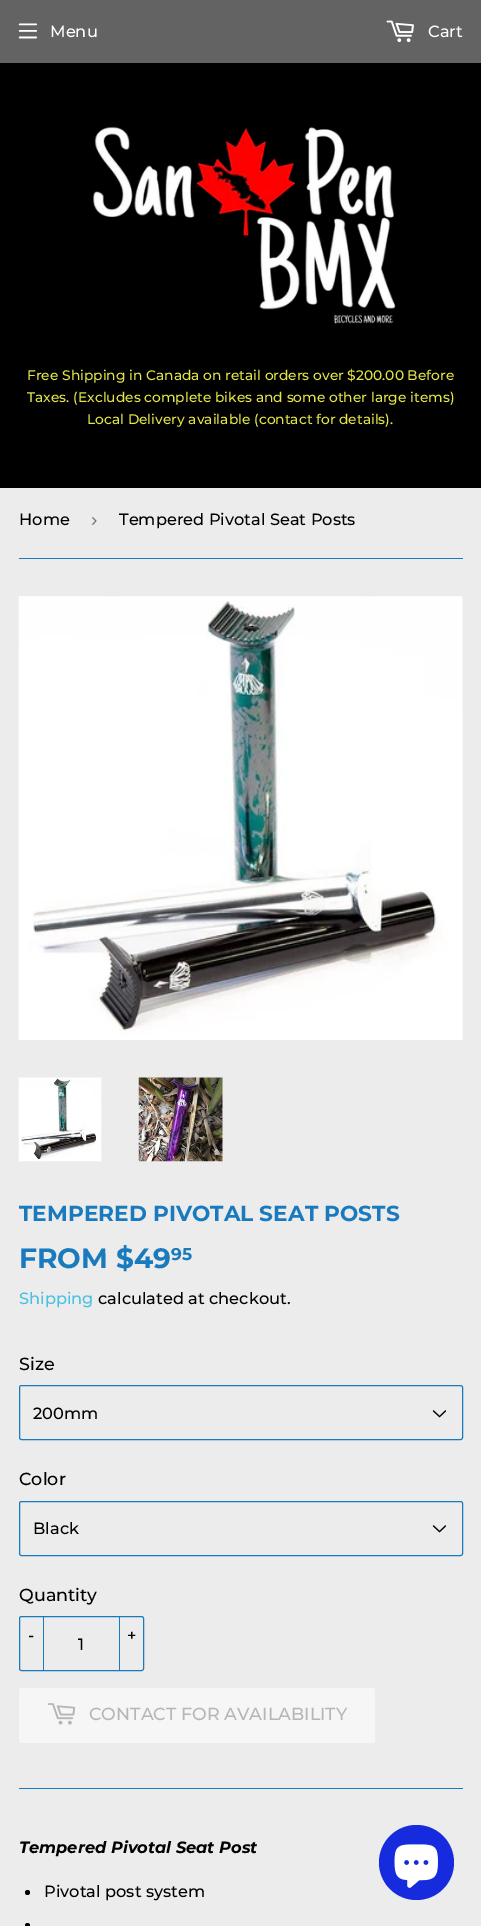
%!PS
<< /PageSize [481 1926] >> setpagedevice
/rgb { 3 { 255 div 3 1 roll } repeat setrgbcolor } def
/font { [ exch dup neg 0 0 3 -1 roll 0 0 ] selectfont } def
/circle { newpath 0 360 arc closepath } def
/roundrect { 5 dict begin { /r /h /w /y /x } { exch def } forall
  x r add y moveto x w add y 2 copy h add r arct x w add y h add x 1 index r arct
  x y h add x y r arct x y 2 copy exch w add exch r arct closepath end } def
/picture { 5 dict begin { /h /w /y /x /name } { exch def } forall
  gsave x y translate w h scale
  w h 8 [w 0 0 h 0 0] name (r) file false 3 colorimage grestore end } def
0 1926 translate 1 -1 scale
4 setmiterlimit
236 236 236 rgb
0 0 481 1926 rectfill
99 99 99 rgb
0 0 481 63 rectfill
(img/1.rgb) 18 23 20 16 picture
(img/2.rgb) 386 20 28 23 picture
0 0 0 rgb
0 63 481 425 rectfill
(img/3.rgb) 92 126 304 198 picture
25 123 189 rgb
19 558 444 1 rectfill
(img/4.rgb) 18 596 445 444 picture
(img/5.rgb) 18 1077 84 85 picture
(img/6.rgb) 138 1077 85 85 picture
(img/7.rgb) 432 1410 15 8 picture
19.5 1385.5 443 54 2 roundrect stroke
(img/7.rgb) 432 1525 15 8 picture
19.5 1501.5 443 54 2 roundrect stroke
19.5 1616.5 124 54 2 roundrect stroke
43 1616 1 55 rectfill
119 1616 1 55 rectfill
246 246 246 rgb
19 1688 356 55 2.5 roundrect fill
(img/8.rgb) 47 1703 29 22 picture
25 123 189 rgb
19 1788 444 1 rectfill
0 0 0 rgb
27.5 1892.5 2.5 circle fill
27.5 1925.5 2.5 circle fill
22 43 222 rgb
416.5 1862.5 37.5 circle fill
(img/9.rgb) 394 1844 44 44 picture
/Montserrat-Medium 16.25 font
255 255 255 rgb
50 37 moveto (Menu) show
428 37 moveto (Cart) show
/Montserrat-Medium 13.8 font
227 229 73 rgb
[
  [(Free Shipping in Canada on retail orders over $200.00 Before) 27 380]
  [(Taxes. \(Excludes complete bikes and some other large items\)) 27 402]
  [(Local Delivery available \(contact for details\).) 87 424]
] { aload pop moveto show } forall
/Montserrat-Medium 16.25 font
0 0 0 rgb
19 525 moveto (Home) show
/LiberationSans-Regular 19 font
118 118 118 rgb
91 526 moveto (›) show
/Montserrat-Medium 16.25 font
0 0 0 rgb
119 525 moveto (Tempered Pivotal Seat Posts) show
/Montserrat-Bold 21.7 font
25 123 189 rgb
19 1221 moveto (TEMPERED PIVOTAL SEAT POSTS) show
/Montserrat-Bold 28 font
19 1268 moveto (FROM $49) show
/Montserrat-Bold 17 font
171 1260 moveto (95) show
/Montserrat-Medium 16.25 font
73 193 229 rgb
19 1304 moveto (Shipping) show
0 0 0 rgb
98 1304 moveto (calculated at checkout.) show
/Montserrat-Medium 17.5 font
19 1370 moveto (Size) show
/Montserrat-Medium 16.25 font
33 1419 moveto (200mm) show
/Montserrat-Medium 17.5 font
19 1485 moveto (Color) show
/Montserrat-Medium 16.25 font
33 1534 moveto (Black) show
/Montserrat-Medium 17.5 font
19 1601 moveto (Quantity) show
/Montserrat-Medium 16.25 font
[
  [(-) 28 1641]
  [(+) 127 1641]
  [(1) 78 1650]
] { aload pop moveto show } forall
/Montserrat-Medium 17.5 font
182 182 182 rgb
89 1720 moveto (CONTACT FOR AVAILABILITY) show
/Montserrat-BoldItalic 16.25 font
0 0 0 rgb
19 1853 moveto (Tempered Pivotal Seat Post) show
/Montserrat-Medium 16.25 font
44 1897 moveto (Pivotal post system) show
showpage
